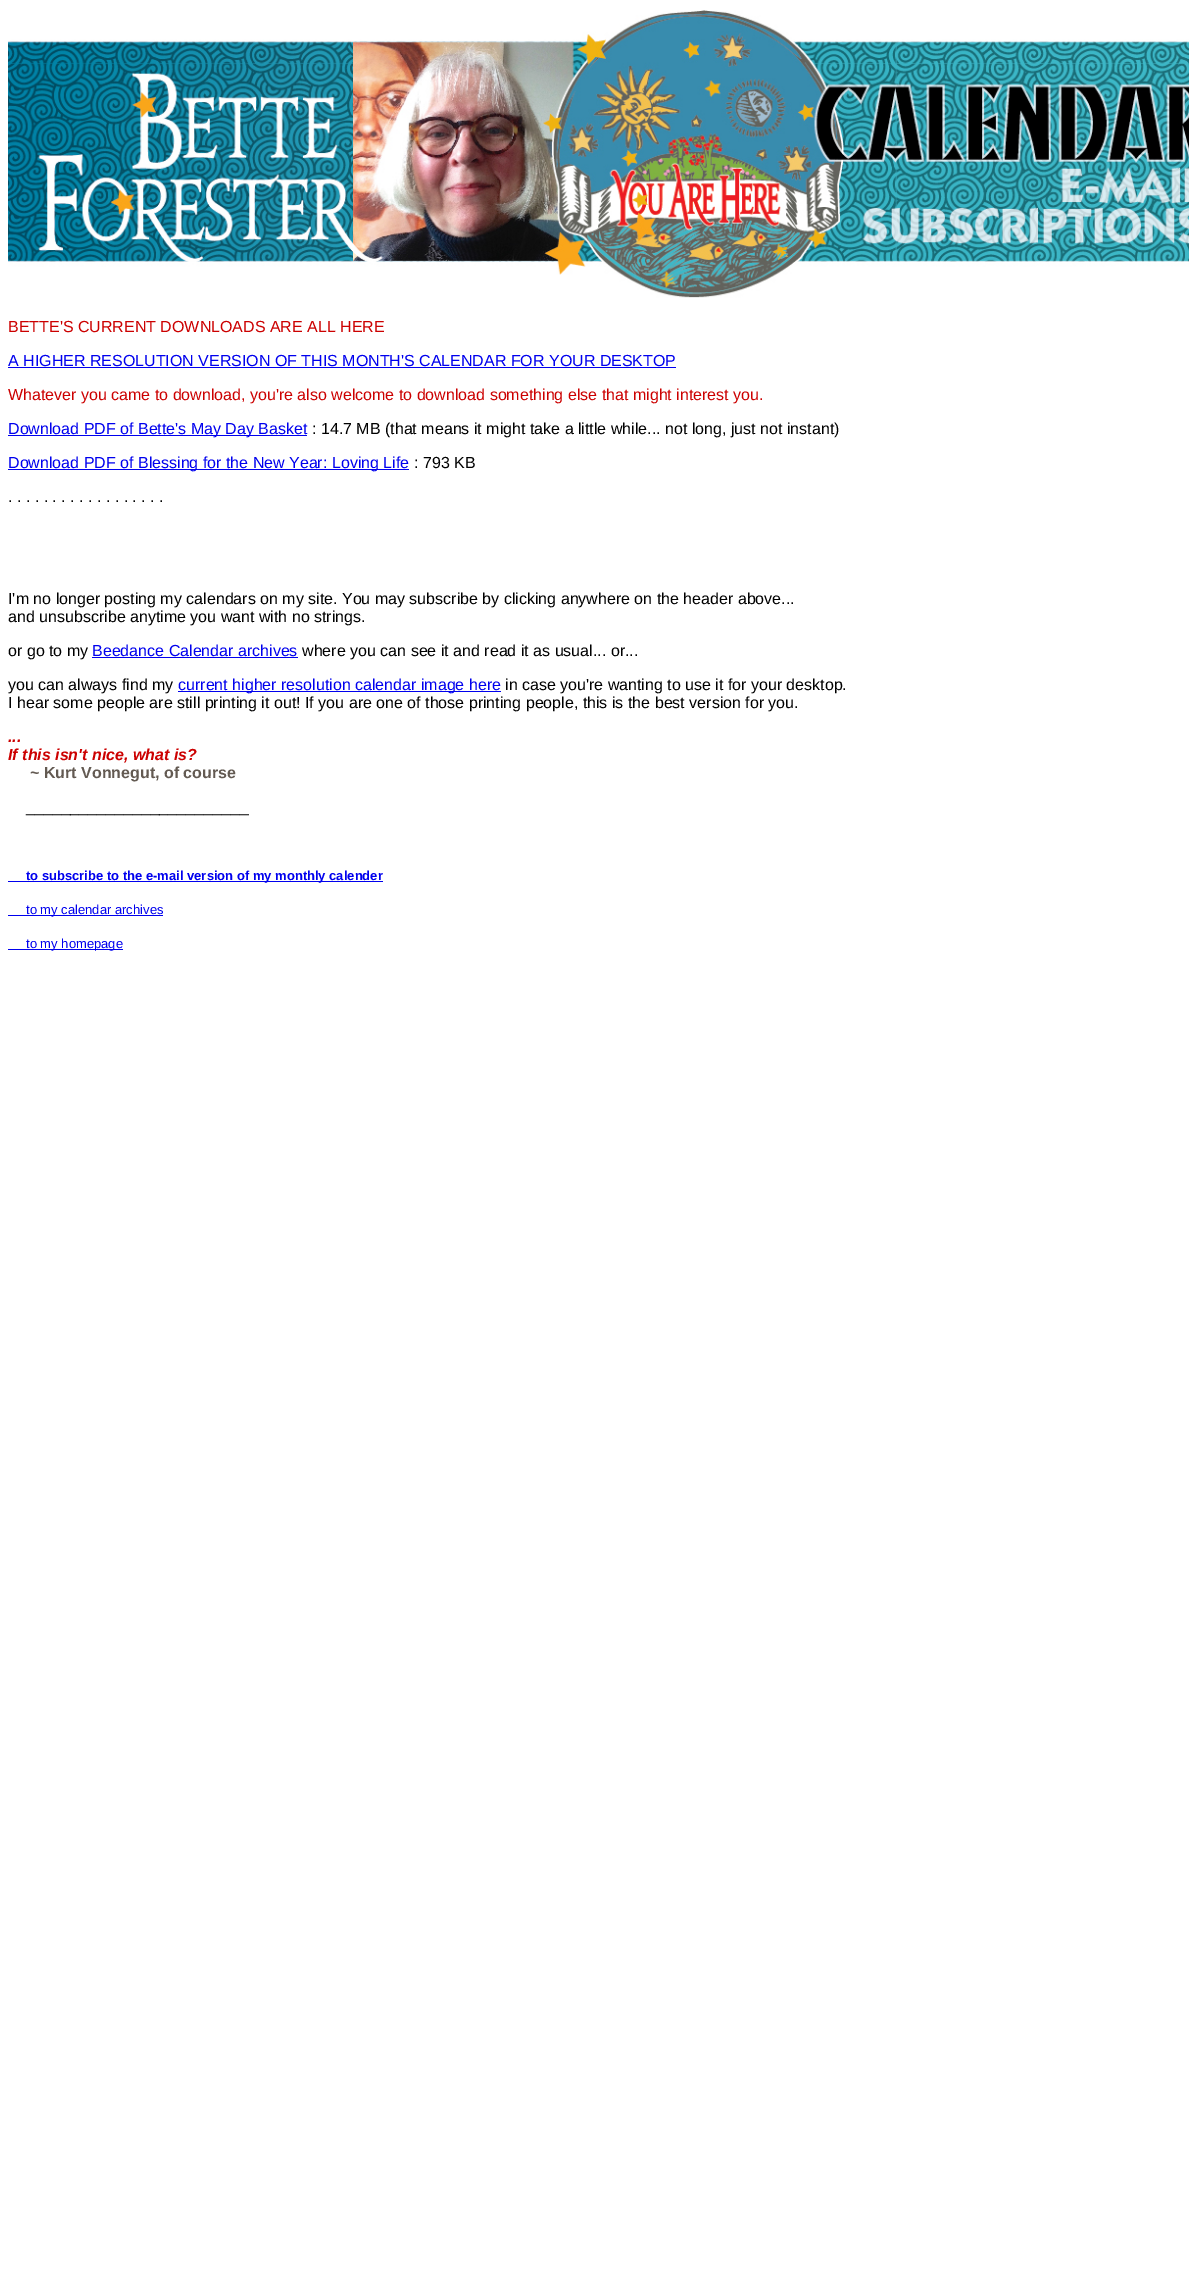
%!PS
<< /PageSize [1189 2275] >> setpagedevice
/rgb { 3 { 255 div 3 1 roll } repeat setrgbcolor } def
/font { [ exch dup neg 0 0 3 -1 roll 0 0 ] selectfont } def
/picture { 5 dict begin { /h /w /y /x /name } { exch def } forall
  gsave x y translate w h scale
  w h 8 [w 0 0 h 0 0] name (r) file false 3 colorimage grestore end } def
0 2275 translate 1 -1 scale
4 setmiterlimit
255 255 255 rgb
0 0 1189 2275 rectfill
(img/1.rgb) 8 10 1181 288 picture
[
  [8 367 668 1 0 0 238]
  [8 435 299 1 0 0 238]
  [8 469 401 1 0 0 238]
  [92 657 206 1 0 0 238]
  [178 691 323 1 0 0 238]
  [8 881 375 1 0 0 238]
  [8 915 155 1 0 0 238]
  [8 949 115 1 0 0 238]
] { aload pop rgb rectfill } forall
/LiberationSans-Regular 16 font
204 0 0 rgb
8 332 moveto (BETTE'S CURRENT DOWNLOADS ARE ALL HERE) show
0 0 238 rgb
8 366 moveto (A HIGHER RESOLUTION VERSION OF THIS MONTH'S CALENDAR FOR YOUR DESKTOP) show
204 0 0 rgb
8 400 moveto (Whatever you came to download, you're also welcome to download something else that might interest you.) show
0 0 238 rgb
8 434 moveto (Download PDF of Bette's May Day Basket) show
0 0 0 rgb
312 434 moveto (: 14.7 MB \(that means it might take a little while... not long, just not instant\)) show
0 0 238 rgb
8 468 moveto (Download PDF of Blessing for the New Year: Loving Life) show
0 0 0 rgb
[
  [(: 793 KB) 414 468]
  [(. . . . . . . . . . . . . . . . . .) 8 502]
  [(I'm no longer posting my calendars on my site. You may subscribe by clicking anywhere on the header above...) 8 604]
  [(and unsubscribe anytime you want with no strings.) 8 622]
  [(or go to my) 8 656]
] { aload pop moveto show } forall
0 0 238 rgb
92 656 moveto (Beedance Calendar archives) show
0 0 0 rgb
302 656 moveto (where you can see it and read it as usual... or...) show
8 690 moveto (you can always find my) show
0 0 238 rgb
178 690 moveto (current higher resolution calendar image here) show
0 0 0 rgb
505 690 moveto (in case you're wanting to use it for your desktop.) show
8 708 moveto (I hear some people are still printing it out! If you are one of those printing people, this is the best version for you.) show
/LiberationSans-BoldItalic 16 font
204 0 0 rgb
8 742 moveto (...) show
8 760 moveto (If this isn't nice, what is?) show
/LiberationSans-Bold 16 font
99 90 82 rgb
30 778 moveto (~ Kurt Vonnegut, of course) show
/LiberationSans-Regular 16 font
0 0 0 rgb
26 812 moveto (_________________________) show
/LiberationSans-Bold 13 font
0 0 238 rgb
26 880 moveto (to subscribe to the e-mail version of my monthly calender) show
/LiberationSans-Regular 13 font
26 914 moveto (to my calendar archives) show
26 948 moveto (to my homepage) show
showpage
